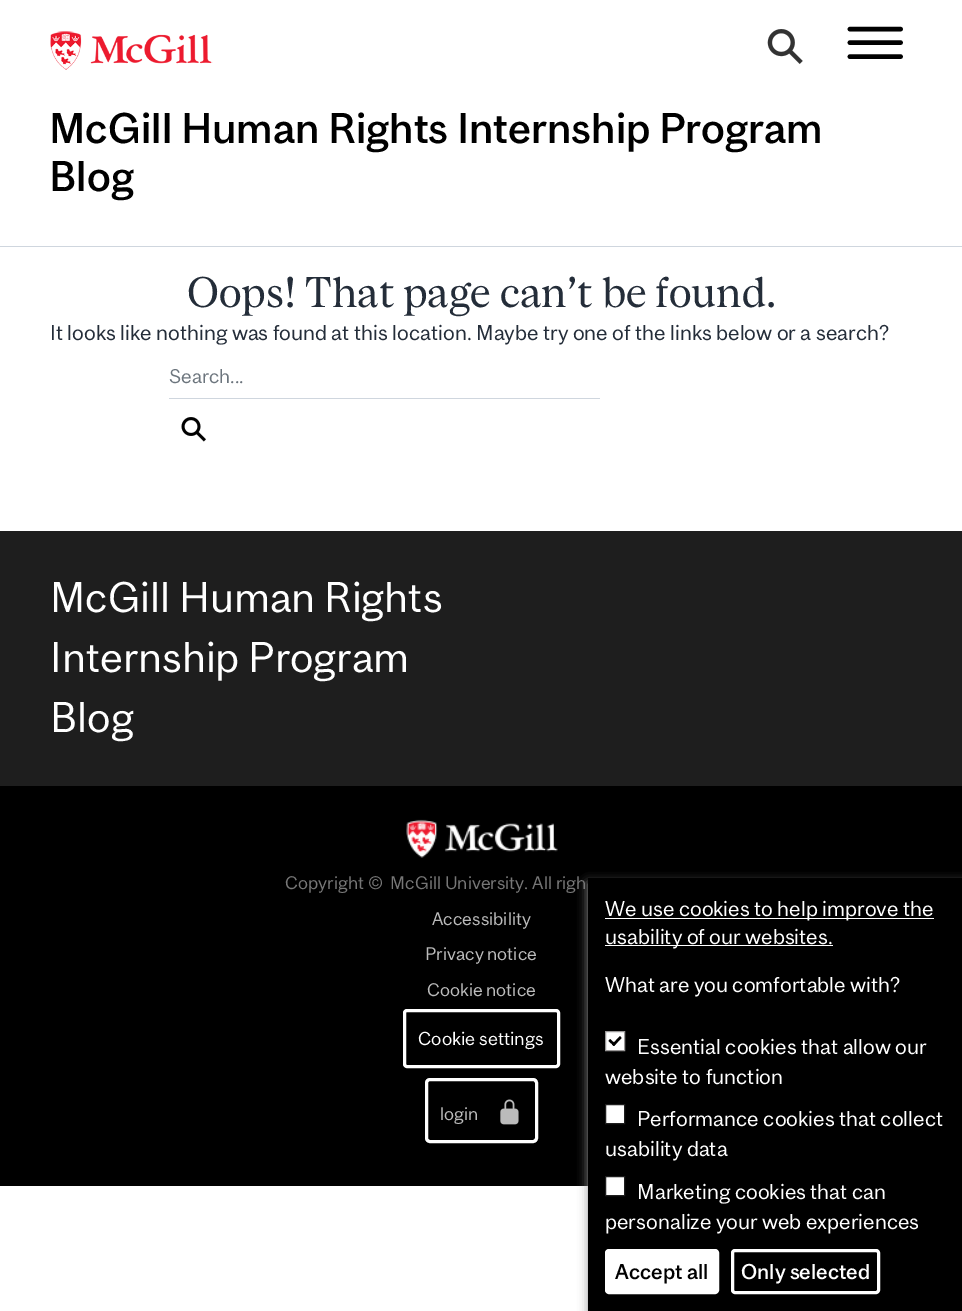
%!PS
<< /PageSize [962 1311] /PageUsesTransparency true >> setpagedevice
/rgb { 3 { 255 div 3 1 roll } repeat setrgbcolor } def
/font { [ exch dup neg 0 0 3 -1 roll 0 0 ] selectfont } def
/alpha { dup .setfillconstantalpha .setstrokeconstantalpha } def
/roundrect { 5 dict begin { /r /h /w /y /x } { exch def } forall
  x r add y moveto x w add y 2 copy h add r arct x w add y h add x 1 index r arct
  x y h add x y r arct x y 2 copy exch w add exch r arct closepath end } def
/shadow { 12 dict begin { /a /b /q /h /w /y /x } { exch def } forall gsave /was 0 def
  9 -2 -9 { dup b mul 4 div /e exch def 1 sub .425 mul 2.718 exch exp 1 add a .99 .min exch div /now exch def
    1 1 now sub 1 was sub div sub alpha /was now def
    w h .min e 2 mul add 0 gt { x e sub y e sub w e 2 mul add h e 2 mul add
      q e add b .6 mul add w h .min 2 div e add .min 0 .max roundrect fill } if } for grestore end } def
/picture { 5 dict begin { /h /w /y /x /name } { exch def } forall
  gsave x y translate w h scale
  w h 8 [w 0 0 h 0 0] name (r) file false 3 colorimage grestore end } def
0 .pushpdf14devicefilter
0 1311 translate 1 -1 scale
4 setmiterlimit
255 255 255 rgb
0 0 962 1311 rectfill
207 214 222 rgb
0 246 962 1 rectfill
(img/1.rgb) 767 29 36 35 picture
0 0 0 rgb
4.6 setlinewidth
1 setlinecap
850 29 moveto 900.5 29 lineto 850 42.5 moveto 900.5 42.5 lineto 850 56.5 moveto 900.5 56.5 lineto stroke
(img/2.rgb) 50 31 163 39 picture
207 214 222 rgb
169 398 431 1 rectfill
(img/3.rgb) 181 417 25 25 picture
30 30 30 rgb
0 531 962 255 rectfill
0 0 0 rgb
0 786 962 400 rectfill
(img/4.rgb) 406 819 152 39 picture
255 255 255 rgb
3 setlinewidth
0 setlinecap
404.5 1010.5 154 56 2.5 roundrect stroke
426.5 1079.5 110 62 3.5 roundrect stroke
(img/5.rgb) 500 1099 19 26 picture
151 151 153 rgb
588 883 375 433 0 5 1 shadow
[
  [588 878 374 433 0 0 0]
  [605 918 329 1 255 255 255]
  [605 945 228 1 255 255 255]
] { aload pop rgb rectfill } forall
605.5 1031.5 moveto 624.5 1031.5 lineto 624.5 1050.5 lineto 605.5 1050.5 lineto closepath gsave fill grestore
154 152 152 rgb
1 setlinewidth
stroke
0 0 0 rgb
620 1036 moveto 621.5 1038 lineto 614 1046 lineto 612 1044.5 lineto closepath fill
610 1039 moveto 615.5 1044 lineto 614 1046 lineto 608.5 1041 lineto closepath fill
255 255 255 rgb
605.5 1104.5 moveto 624.5 1104.5 lineto 624.5 1123.5 lineto 605.5 1123.5 lineto closepath gsave fill grestore
31 31 31 rgb
stroke
255 255 255 rgb
605.5 1176.5 moveto 624.5 1176.5 lineto 624.5 1195.5 lineto 605.5 1195.5 lineto closepath gsave fill grestore
31 31 31 rgb
stroke
255 255 255 rgb
606.5 1250.5 111 42 2.5 roundrect gsave fill grestore
3 setlinewidth
stroke
732.5 1250.5 146 42 2.5 roundrect stroke
/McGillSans-Medium 40 font
0 0 0 rgb
49 143 moveto (McGill Human Rights Internship Program) show
49 191 moveto (Blog) show
/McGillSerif-Regular 40 font
36 45 57 rgb
187 307 moveto (Oops! That page can’t be found.) show
/McGillSans-Regular 20 font
50 340 moveto (It looks like nothing was found at this location. Maybe try one of the links below or a search?) show
/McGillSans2-Regular 18.5 font
108 117 125 rgb
169 383 moveto (Search...) show
/McGillSans-Regular 40 font
255 255 255 rgb
[
  [(McGill Human Rights) 50 612]
  [(Internship Program) 50 672]
  [(Blog) 50 732]
] { aload pop moveto show } forall
/McGillSans-Regular 17 font
119 119 119 rgb
285 889 moveto (Copyright ©  McGill University. All righ) show
187 187 187 rgb
[
  [(Accessibility) 432 925]
  [(Privacy notice) 425 960]
  [(Cookie notice) 427 996]
] { aload pop moveto show } forall
/McGillSans2-Regular 17.5 font
255 255 255 rgb
418 1045 moveto (Cookie settings) show
/McGillSans-Regular 17 font
187 187 187 rgb
440 1120 moveto (login) show
/McGillSans-Regular 20 font
255 255 255 rgb
[
  [(We use cookies to help improve the) 605 916]
  [(usability of our websites.) 605 944]
  [(What are you comfortable with?) 605 992]
] { aload pop moveto show } forall
/McGillSans2-Regular 20 font
[
  [(Essential cookies that allow our) 637 1054]
  [(website to function) 605 1084]
  [(Performance cookies that collect) 637 1126]
  [(usability data) 605 1156]
  [(Marketing cookies that can) 637 1199]
  [(personalize your web experiences) 605 1229]
] { aload pop moveto show } forall
/McGillSans2-Medium 20 font
0 0 0 rgb
615 1279 moveto (Accept all) show
255 255 255 rgb
741 1279 moveto (Only selected) show
.poppdf14devicefilter showpage
